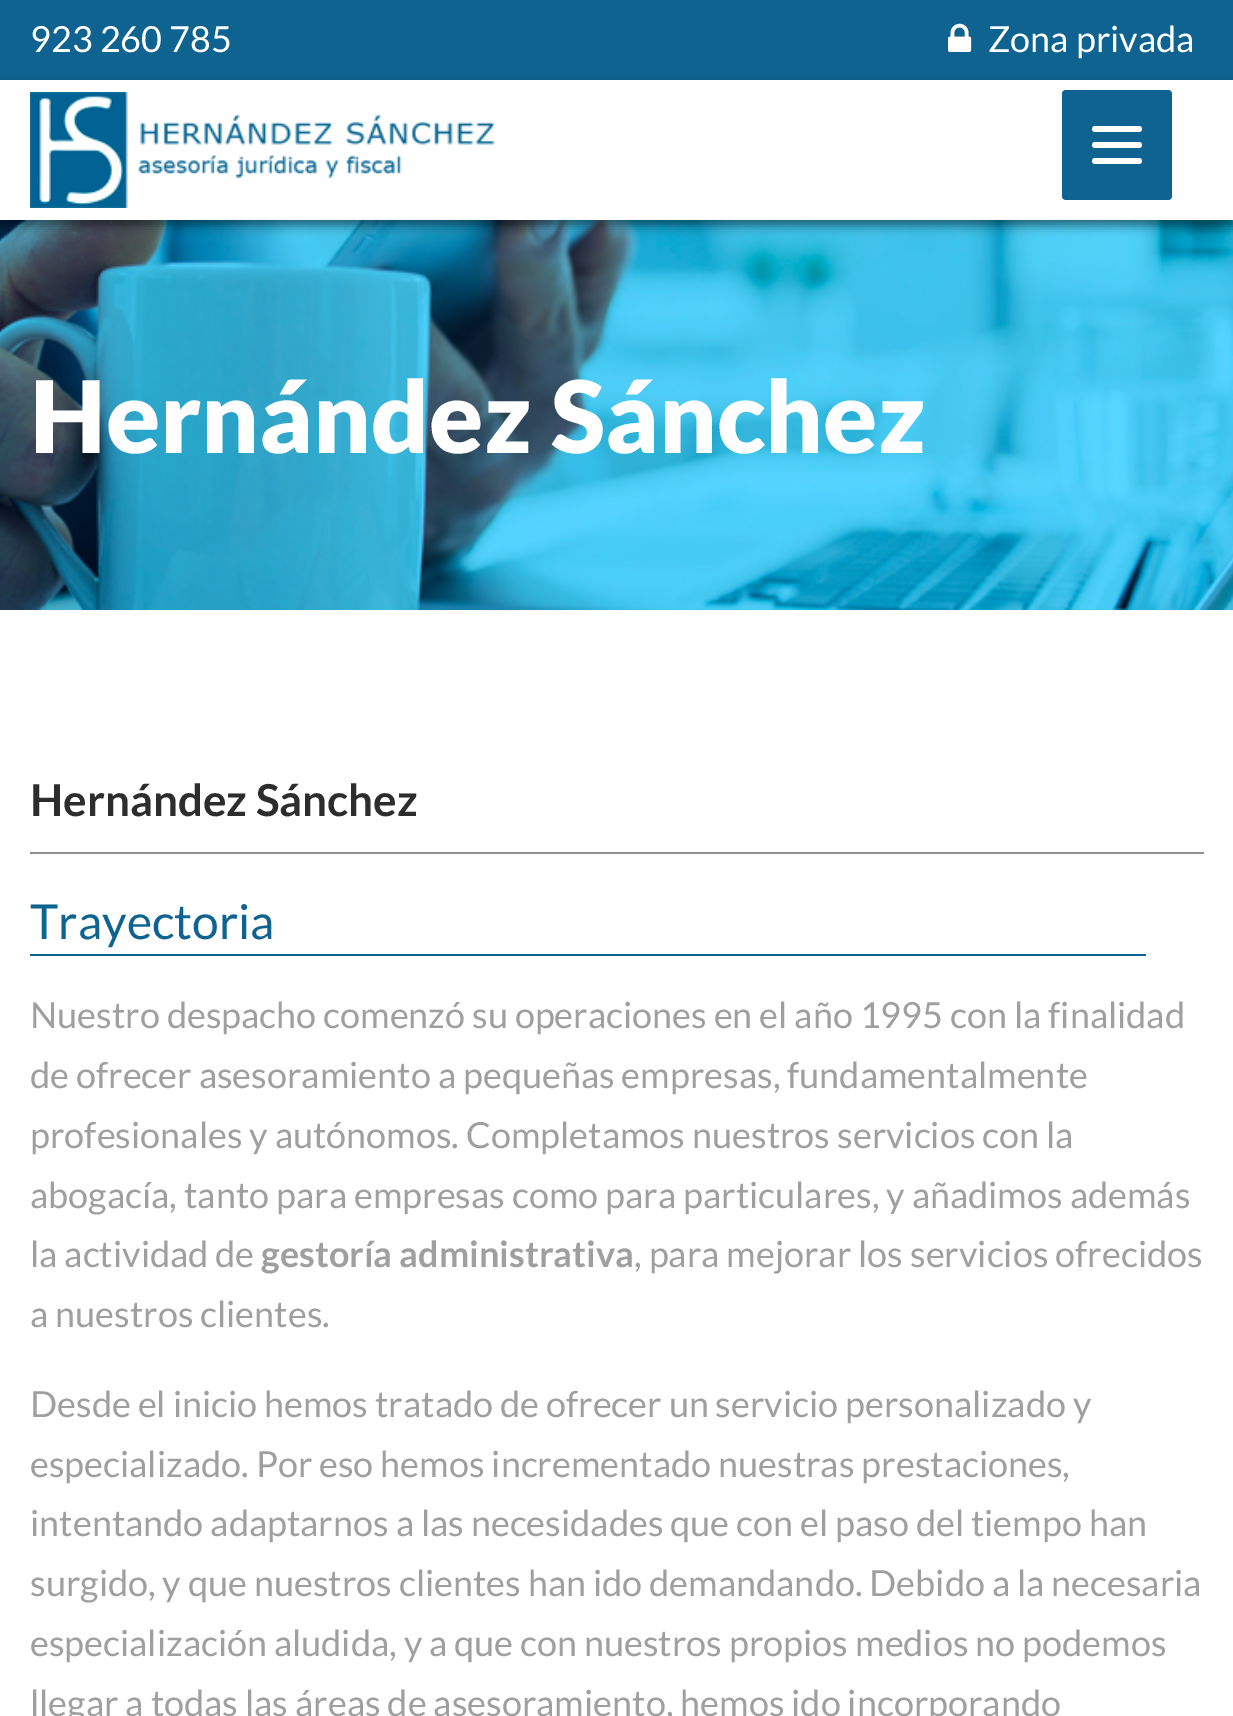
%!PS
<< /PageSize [1233 1716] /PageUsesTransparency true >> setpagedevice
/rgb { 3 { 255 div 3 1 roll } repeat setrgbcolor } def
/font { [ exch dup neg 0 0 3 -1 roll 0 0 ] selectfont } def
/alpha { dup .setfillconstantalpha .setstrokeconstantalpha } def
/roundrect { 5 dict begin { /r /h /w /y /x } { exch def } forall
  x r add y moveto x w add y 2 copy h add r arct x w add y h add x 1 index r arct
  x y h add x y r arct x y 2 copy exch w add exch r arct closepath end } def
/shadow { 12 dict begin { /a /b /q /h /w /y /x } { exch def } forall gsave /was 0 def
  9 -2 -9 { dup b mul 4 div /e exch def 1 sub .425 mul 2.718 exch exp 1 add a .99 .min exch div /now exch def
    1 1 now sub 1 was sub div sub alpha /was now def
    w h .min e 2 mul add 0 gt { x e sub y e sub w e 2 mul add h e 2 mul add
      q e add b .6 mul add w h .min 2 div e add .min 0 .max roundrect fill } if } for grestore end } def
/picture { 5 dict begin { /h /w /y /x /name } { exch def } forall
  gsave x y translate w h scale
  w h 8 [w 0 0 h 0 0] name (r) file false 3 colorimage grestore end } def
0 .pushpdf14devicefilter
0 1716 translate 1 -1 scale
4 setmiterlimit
255 255 255 rgb
0 0 1233 1716 rectfill
15 99 144 rgb
0 0 1233 80 rectfill
(img/1.rgb) 948 23 24 29 picture
(img/3.rgb) 0 220 1233 390 picture
gsave
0 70 moveto 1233 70 lineto 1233 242 lineto 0 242 lineto closepath 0 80 moveto 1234 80 lineto 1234 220 lineto 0 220 lineto closepath eoclip newpath
0 0 0 rgb
0 86 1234 140 0 5 0.5 shadow
grestore
(img/2.rgb) 30 92 464 116 picture
1062 90 110 110 4 roundrect fill
255 255 255 rgb
1092 142 50 6 3 roundrect fill
1092 126 50 6 3 roundrect fill
1092 158 50 6 3 roundrect fill
144 144 144 rgb
30 852 1174 2 rectfill
15 99 144 rgb
30 954 1116 2 rectfill
/Lato-Regular 36 font
255 255 255 rgb
30 52 moveto (923 260 785) show
988 52 moveto (Zona privada) show
/Lato-Black 100 font
30 453 moveto (Hernández Sánchez) show
/Lato-Bold 44 font
45 45 45 rgb
30 816 moveto (Hernández Sánchez) show
/Lato-Regular 48 font
15 99 144 rgb
30 939 moveto (Trayectoria) show
/Lato-Regular 36 font
159 159 159 rgb
[
  [(Nuestro despacho comenzó su operaciones en el año 1995 con la finalidad) 30 1028]
  [(de ofrecer asesoramiento a pequeñas empresas, fundamentalmente) 30 1088]
  [(profesionales y autónomos. Completamos nuestros servicios con la) 30 1148]
  [(abogacía, tanto para empresas como para particulares, y añadimos además) 30 1208]
  [(la actividad de) 30 1267]
] { aload pop moveto show } forall
/Lato-Bold 36 font
261 1267 moveto (gestoría administrativa) show
/Lato-Regular 36 font
[
  [(, para mejorar los servicios ofrecidos) 634 1267]
  [(a nuestros clientes.) 30 1327]
  [(Desde el inicio hemos tratado de ofrecer un servicio personalizado y) 30 1417]
  [(especializado. Por eso hemos incrementado nuestras prestaciones,) 30 1477]
  [(intentando adaptarnos a las necesidades que con el paso del tiempo han) 30 1536]
  [(surgido, y que nuestros clientes han ido demandando. Debido a la necesaria) 30 1596]
  [(especialización aludida, y a que con nuestros propios medios no podemos) 30 1656]
  [(llegar a todas las áreas de asesoramiento, hemos ido incorporando) 30 1716]
] { aload pop moveto show } forall
.poppdf14devicefilter showpage
